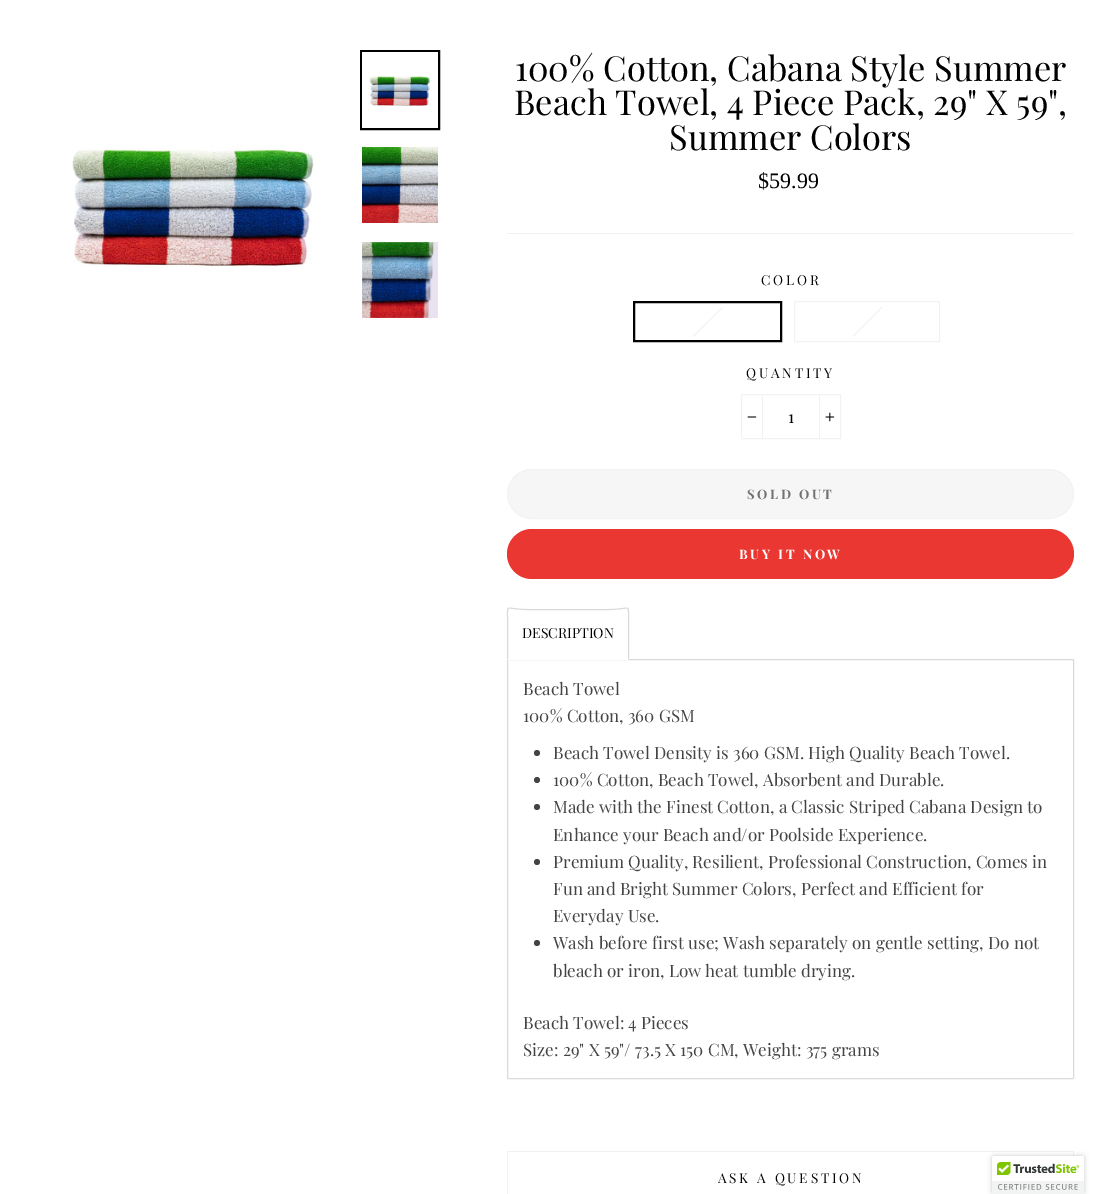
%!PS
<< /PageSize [1114 1194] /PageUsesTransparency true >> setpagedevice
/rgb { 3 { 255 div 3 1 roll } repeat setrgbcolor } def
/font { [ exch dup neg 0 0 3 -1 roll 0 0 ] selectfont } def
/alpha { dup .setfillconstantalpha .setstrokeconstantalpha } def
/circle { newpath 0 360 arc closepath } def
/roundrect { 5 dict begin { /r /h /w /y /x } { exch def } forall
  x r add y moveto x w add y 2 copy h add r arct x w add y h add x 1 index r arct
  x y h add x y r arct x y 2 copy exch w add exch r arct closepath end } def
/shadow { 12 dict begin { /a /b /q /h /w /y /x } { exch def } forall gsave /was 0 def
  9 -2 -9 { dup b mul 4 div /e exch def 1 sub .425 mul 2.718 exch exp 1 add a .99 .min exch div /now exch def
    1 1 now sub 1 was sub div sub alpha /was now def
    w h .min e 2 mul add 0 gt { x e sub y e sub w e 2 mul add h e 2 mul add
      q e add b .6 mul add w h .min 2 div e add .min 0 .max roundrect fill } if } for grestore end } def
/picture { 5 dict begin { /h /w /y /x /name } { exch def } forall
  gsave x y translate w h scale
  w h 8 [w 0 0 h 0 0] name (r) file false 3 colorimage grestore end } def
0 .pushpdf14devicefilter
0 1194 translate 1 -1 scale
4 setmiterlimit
255 255 255 rgb
0 0 1114 1194 rectfill
(img/1.rgb) 72 145 244 123 picture
0 0 0 rgb
2 setlinewidth
361 51 78 78 rectstroke
(img/2.rgb) 362 52 76 76 picture
(img/3.rgb) 362 147 76 76 picture
(img/4.rgb) 362 242 76 76 picture
242 242 242 rgb
507 233 567 1 rectfill
722.5 307 moveto 723 307.5 lineto 694 336.5 lineto 693 336 lineto closepath fill
0 0 0 rgb
634 302 147 39 rectstroke
242 242 242 rgb
881.5 307 moveto 882.5 307.5 lineto 853.5 336.5 lineto 852.5 336 lineto closepath fill
1 setlinewidth
794.5 301.5 145 40 rectstroke
741.5 394.5 99 44 rectstroke
762 395 1 43 rectfill
(img/5.rgb) 747 416 10 2 picture
819 395 1 43 rectfill
(img/6.rgb) 825 412 10 10 picture
246 246 246 rgb
507.5 469.5 566 49 24.5 roundrect gsave fill grestore
242 242 242 rgb
stroke
235 55 49 rgb
507 529 567 50 25 roundrect fill
219 218 218 rgb
507.5 659.5 566 419 0.5 roundrect stroke
255 255 255 rgb
507 609 122 51 1 roundrect fill
628 659 1 1 rectfill
219 218 218 rgb
507.5 659.5 moveto 507.5 618 lineto 507.5 603 505.5 609.5 528 609.5 curveto 608 609.5 lineto 630.5 609.5 628.5 603 628.5 618 curveto 628.5 659.5 lineto stroke
69 68 68 rgb
537 753 3 circle fill
537 780 3 circle fill
537 807 3 circle fill
537 862 3 circle fill
537 943 3 circle fill
[
  [507 1151 567 1 242 242 242]
  [1073 1151 1 5 242 242 242]
  [507 1151 1 43 242 242 242]
] { aload pop rgb rectfill } forall
0 0 0 rgb
992 1156 92 38 2 2.5 0.2 shadow
255 255 255 rgb
994 1156 moveto 1082 1156 lineto 1083 1156 1084 1157 1084 1158 curveto 1084 1194 lineto 992 1194 lineto 992 1158 lineto 992 1157 993 1156 994 1156 curveto closepath fill
(img/7.rgb) 992 1162 92 32 picture
/PlayfairDisplay-Regular 34.4 font
0 0 0 rgb
[
  [(100% Cotton, Cabana Style Summer) 515 81]
  [(Beach Towel, 4 Piece Pack, 29" X 59",) 514 115]
  [(Summer Colors) 669 150]
] { aload pop moveto show } forall
/LiberationSerif-Regular 22 font
758 188 moveto ($59.99) show
/PlayfairDisplay-Regular 13.6 font
761 285 moveto 2.75 0 (COLOR) ashow
746 378 moveto 2.75 0 (QUANTITY) ashow
/PlayfairDisplay-Regular 17 font
788 423 moveto (1) show
/PlayfairDisplay-Bold 13 font
113 113 113 rgb
747 499 moveto 2.6 0 (SOLD OUT) ashow
255 255 255 rgb
739 559 moveto 2.6 0 (BUY IT NOW) ashow
/PlayfairDisplay-Regular 14 font
0 0 0 rgb
522 638 moveto (DESCRIPTION) show
/PlayfairDisplay-Regular 17 font
69 68 68 rgb
[
  [(Beach Towel) 523 695]
  [(100% Cotton, 360 GSM) 523 722]
  [(Beach Towel Density is 360 GSM. High Quality Beach Towel.) 553 759]
  [(100% Cotton, Beach Towel, Absorbent and Durable.) 553 786]
  [(Made with the Finest Cotton, a Classic Striped Cabana Design to) 553 813]
  [(Enhance your Beach and/or Poolside Experience.) 553 841]
  [(Premium Quality, Resilient, Professional Construction, Comes in) 553 868]
  [(Fun and Bright Summer Colors, Perfect and Efficient for) 553 895]
  [(Everyday Use.) 553 922]
  [(Wash before first use; Wash separately on gentle setting, Do not) 553 949]
  [(bleach or iron, Low heat tumble drying.) 553 977]
  [(Beach Towel: 4 Pieces) 523 1029]
  [(Size: 29" X 59"/ 73.5 X 150 CM, Weight: 375 grams) 523 1056]
] { aload pop moveto show } forall
/PlayfairDisplay-Regular 13.6 font
0 0 0 rgb
718 1183 moveto 2.75 0 (ASK A QUESTION) ashow
.poppdf14devicefilter showpage
